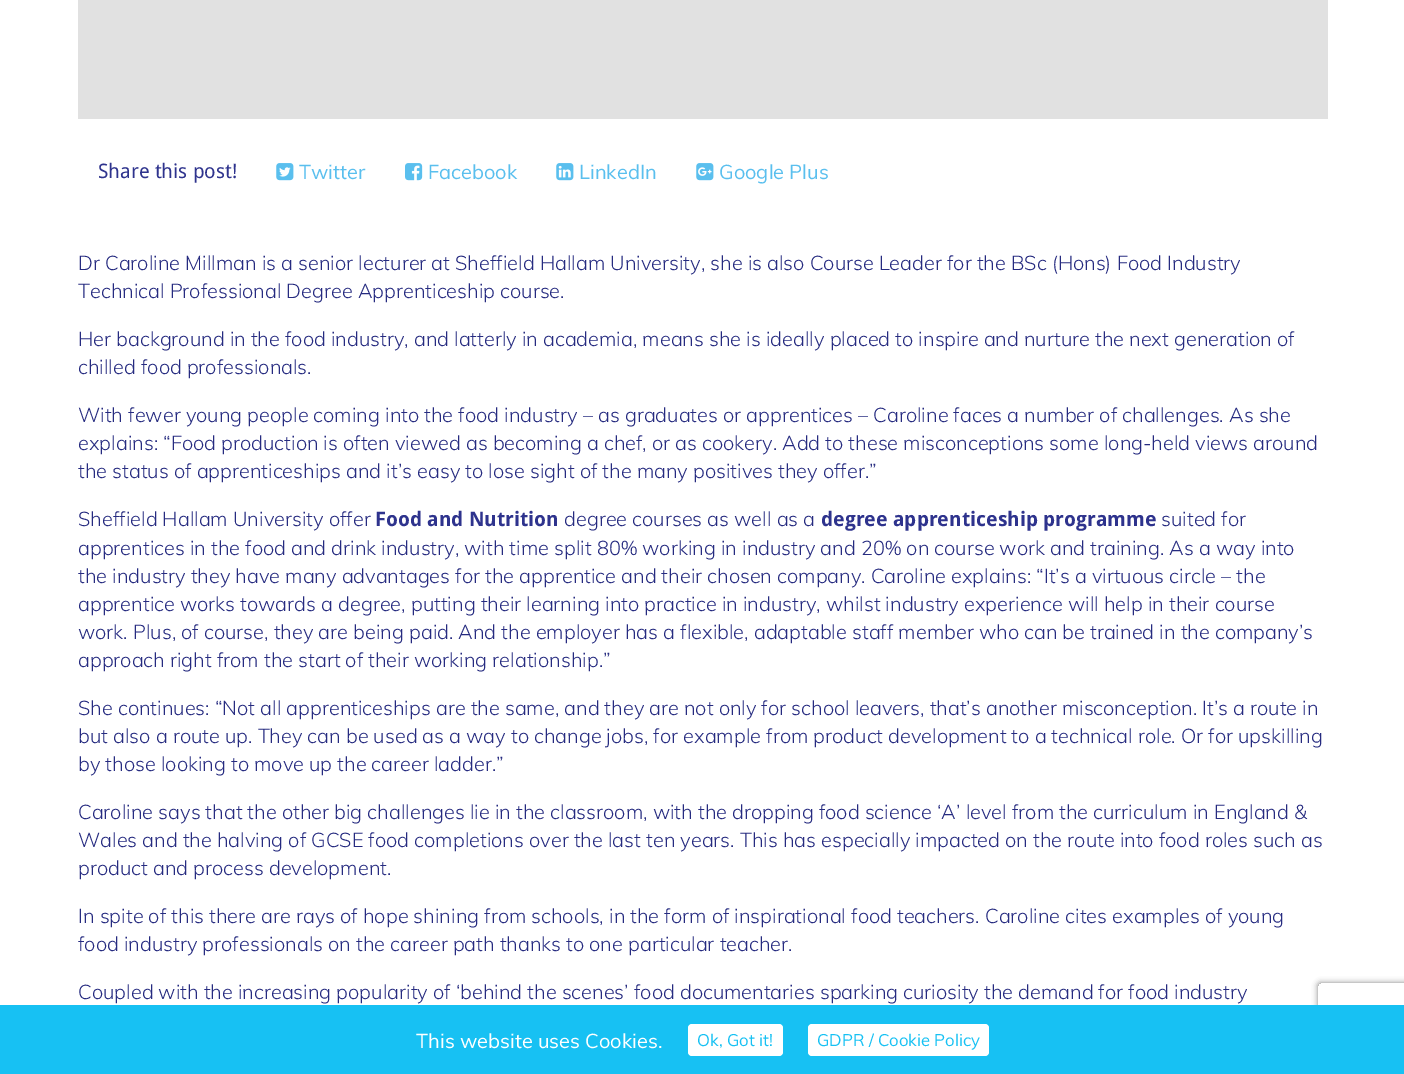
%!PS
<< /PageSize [1404 1074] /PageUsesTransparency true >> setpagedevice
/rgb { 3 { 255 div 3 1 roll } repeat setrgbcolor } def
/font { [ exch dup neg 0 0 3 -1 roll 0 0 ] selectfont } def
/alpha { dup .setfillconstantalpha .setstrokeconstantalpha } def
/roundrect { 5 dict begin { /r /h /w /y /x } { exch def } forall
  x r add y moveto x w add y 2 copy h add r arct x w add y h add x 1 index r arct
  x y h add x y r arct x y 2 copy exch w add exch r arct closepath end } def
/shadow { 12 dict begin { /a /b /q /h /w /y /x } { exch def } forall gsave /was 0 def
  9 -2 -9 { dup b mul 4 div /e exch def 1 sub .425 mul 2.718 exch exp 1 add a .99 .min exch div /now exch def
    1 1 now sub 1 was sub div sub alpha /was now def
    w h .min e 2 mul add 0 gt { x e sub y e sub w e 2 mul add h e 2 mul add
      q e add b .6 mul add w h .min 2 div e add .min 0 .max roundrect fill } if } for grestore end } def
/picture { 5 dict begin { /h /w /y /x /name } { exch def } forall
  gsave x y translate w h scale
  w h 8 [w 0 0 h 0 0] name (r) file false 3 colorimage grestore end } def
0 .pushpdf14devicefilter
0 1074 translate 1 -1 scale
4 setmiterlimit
255 255 255 rgb
0 0 1404 1074 rectfill
225 225 225 rgb
78 0 1250 119 rectfill
(img/1.rgb) 276 163 18 18 picture
(img/2.rgb) 405 163 18 18 picture
(img/3.rgb) 556 163 18 18 picture
(img/4.rgb) 696 163 18 18 picture
gsave
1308 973 moveto 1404 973 lineto 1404 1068 lineto 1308 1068 lineto closepath 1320.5 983 moveto 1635.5 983 lineto 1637 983 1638 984 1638 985.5 curveto 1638 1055.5 lineto 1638 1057 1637 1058 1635.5 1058 curveto 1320.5 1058 lineto 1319 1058 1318 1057 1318 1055.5 curveto 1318 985.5 lineto 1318 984 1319 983 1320.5 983 curveto closepath eoclip newpath
128 128 128 rgb
1318 983 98 75 2.5 3 1 shadow
grestore
23 193 243 rgb
0 1005 1404 69 rectfill
255 255 255 rgb
688 1024 95 32 4 roundrect fill
808 1024 181 32 4 roundrect fill
/DroidSans-Regular 20 font
46 51 141 rgb
98 178 moveto (Share this post!) show
/Muli-Regular 20 font
90 191 238 rgb
[
  [(Twitter) 299 179]
  [(Facebook) 428 179]
  [(LinkedIn) 579 179]
  [(Google Plus) 719 179]
] { aload pop moveto show } forall
/Muli-Light 20 font
38 43 128 rgb
[
  [(Dr Caroline Millman is a senior lecturer at Sheffield Hallam University, she is also Course Leader for the BSc \(Hons\) Food Industry) 78 270]
  [(Technical Professional Degree Apprenticeship course.) 78 298]
  [(Her background in the food industry, and latterly in academia, means she is ideally placed to inspire and nurture the next generation of) 78 346]
  [(chilled food professionals.) 78 374]
  [(With fewer young people coming into the food industry – as graduates or apprentices – Caroline faces a number of challenges. As she) 78 422]
  [(explains: “Food production is often viewed as becoming a chef, or as cookery. Add to these misconceptions some long-held views around) 78 450]
  [(the status of apprenticeships and it’s easy to lose sight of the many positives they offer.”) 78 478]
  [(Sheffield Hallam University offer) 78 526]
] { aload pop moveto show } forall
/DroidSans-Bold 20 font
46 51 141 rgb
375 526 moveto (Food and Nutrition) show
/Muli-Light 20 font
38 43 128 rgb
564 526 moveto (degree courses as well as a) show
/DroidSans-Bold 20 font
46 51 141 rgb
821 526 moveto (degree apprenticeship programme) show
/Muli-Light 20 font
38 43 128 rgb
[
  [(suited for) 1161 526]
  [(apprentices in the food and drink industry, with time split 80% working in industry and 20% on course work and training. As a way into) 78 555]
  [(the industry they have many advantages for the apprentice and their chosen company. Caroline explains: “It’s a virtuous circle – the) 78 583]
  [(apprentice works towards a degree, putting their learning into practice in industry, whilst industry experience will help in their course) 78 611]
  [(work. Plus, of course, they are being paid. And the employer has a flexible, adaptable staff member who can be trained in the company’s) 78 639]
  [(approach right from the start of their working relationship.”) 78 667]
  [(She continues: “Not all apprenticeships are the same, and they are not only for school leavers, that’s another misconception. It’s a route in) 78 715]
  [(but also a route up. They can be used as a way to change jobs, for example from product development to a technical role. Or for upskilling) 78 743]
  [(by those looking to move up the career ladder.”) 78 771]
  [(Caroline says that the other big challenges lie in the classroom, with the dropping food science ‘A’ level from the curriculum in England &) 78 819]
  [(Wales and the halving of GCSE food completions over the last ten years. This has especially impacted on the route into food roles such as) 78 847]
  [(product and process development.) 78 875]
  [(In spite of this there are rays of hope shining from schools, in the form of inspirational food teachers. Caroline cites examples of young) 78 923]
  [(food industry professionals on the career path thanks to one particular teacher.) 78 951]
  [(Coupled with the increasing popularity of ‘behind the scenes’ food documentaries sparking curiosity the demand for food industry) 78 999]
] { aload pop moveto show } forall
/Muli-Regular 20 font
255 255 255 rgb
416 1048 moveto (This website uses Cookies.) show
/Muli-Regular 16.75 font
23 193 243 rgb
697 1046 moveto (Ok, Got it!) show
817 1046 moveto (GDPR / Cookie Policy) show
.poppdf14devicefilter showpage
